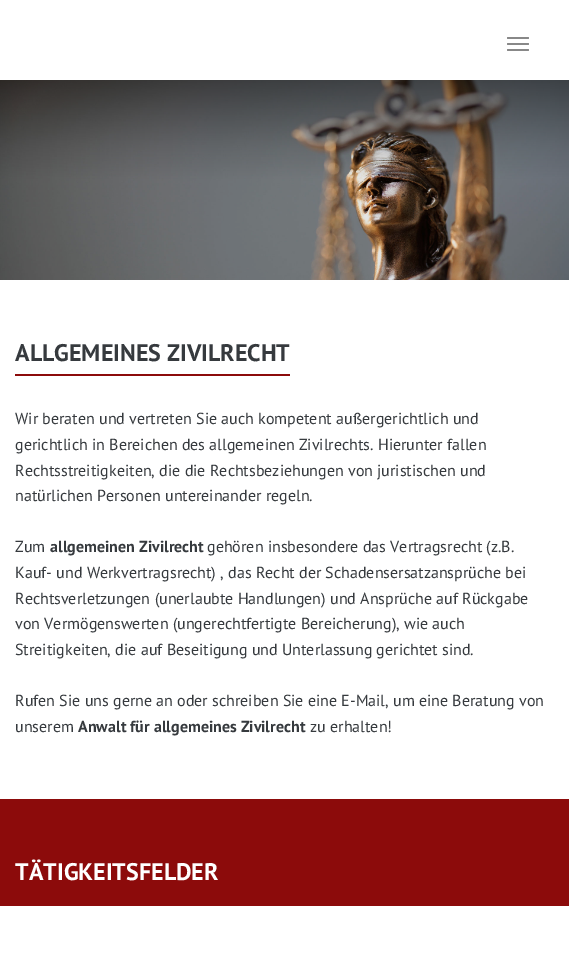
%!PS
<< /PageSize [569 962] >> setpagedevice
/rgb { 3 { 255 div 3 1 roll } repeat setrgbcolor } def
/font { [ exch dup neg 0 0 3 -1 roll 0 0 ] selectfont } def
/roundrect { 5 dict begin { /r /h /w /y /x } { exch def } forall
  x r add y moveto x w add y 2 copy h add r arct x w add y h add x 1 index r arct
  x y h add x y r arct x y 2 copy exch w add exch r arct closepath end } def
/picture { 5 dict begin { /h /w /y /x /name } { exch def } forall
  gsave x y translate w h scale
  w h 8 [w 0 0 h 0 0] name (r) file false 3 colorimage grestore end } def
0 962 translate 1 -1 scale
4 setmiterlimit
255 255 255 rgb
0 0 569 962 rectfill
136 136 136 rgb
507 37 22 2 1 roundrect fill
507 43 22 2 1 roundrect fill
507 49 22 2 1 roundrect fill
(img/1.rgb) 0 80 569 200 picture
140 11 11 rgb
15 374 275 2 rectfill
0 799 569 107 rectfill
/PTSans-Bold 24 font
54 58 62 rgb
15 361 moveto (ALLGEMEINES ZIVILRECHT) show
/PTSans-Regular 16 font
[
  [(Wir beraten und vertreten Sie auch kompetent außergerichtlich und) 15 424]
  [(gerichtlich in Bereichen des allgemeinen Zivilrechts. Hierunter fallen) 15 450]
  [(Rechtsstreitigkeiten, die die Rechtsbeziehungen von juristischen und) 15 476]
  [(natürlichen Personen untereinander regeln.) 15 501]
  [(Zum) 15 552]
] { aload pop moveto show } forall
/PTSans-Bold 16 font
50 552 moveto (allgemeinen Zivilrecht) show
/PTSans-Regular 16 font
[
  [(gehören insbesondere das Vertragsrecht \(z.B.) 207 552]
  [(Kauf- und Werkvertragsrecht\) , das Recht der Schadensersatzansprüche bei) 15 578]
  [(Rechtsverletzungen \(unerlaubte Handlungen\) und Ansprüche auf Rückgabe) 15 604]
  [(von Vermögenswerten \(ungerechtfertigte Bereicherung\), wie auch) 15 629]
  [(Streitigkeiten, die auf Beseitigung und Unterlassung gerichtet sind.) 15 655]
  [(Rufen Sie uns gerne an oder schreiben Sie eine E-Mail, um eine Beratung von) 15 706]
  [(unserem) 15 732]
] { aload pop moveto show } forall
/PTSans-Bold 16 font
78 732 moveto (Anwalt für allgemeines Zivilrecht) show
/PTSans-Regular 16 font
310 732 moveto (zu erhalten!) show
/PTSans-Bold 24 font
255 255 255 rgb
15 880 moveto (TÄTIGKEITSFELDER) show
showpage
